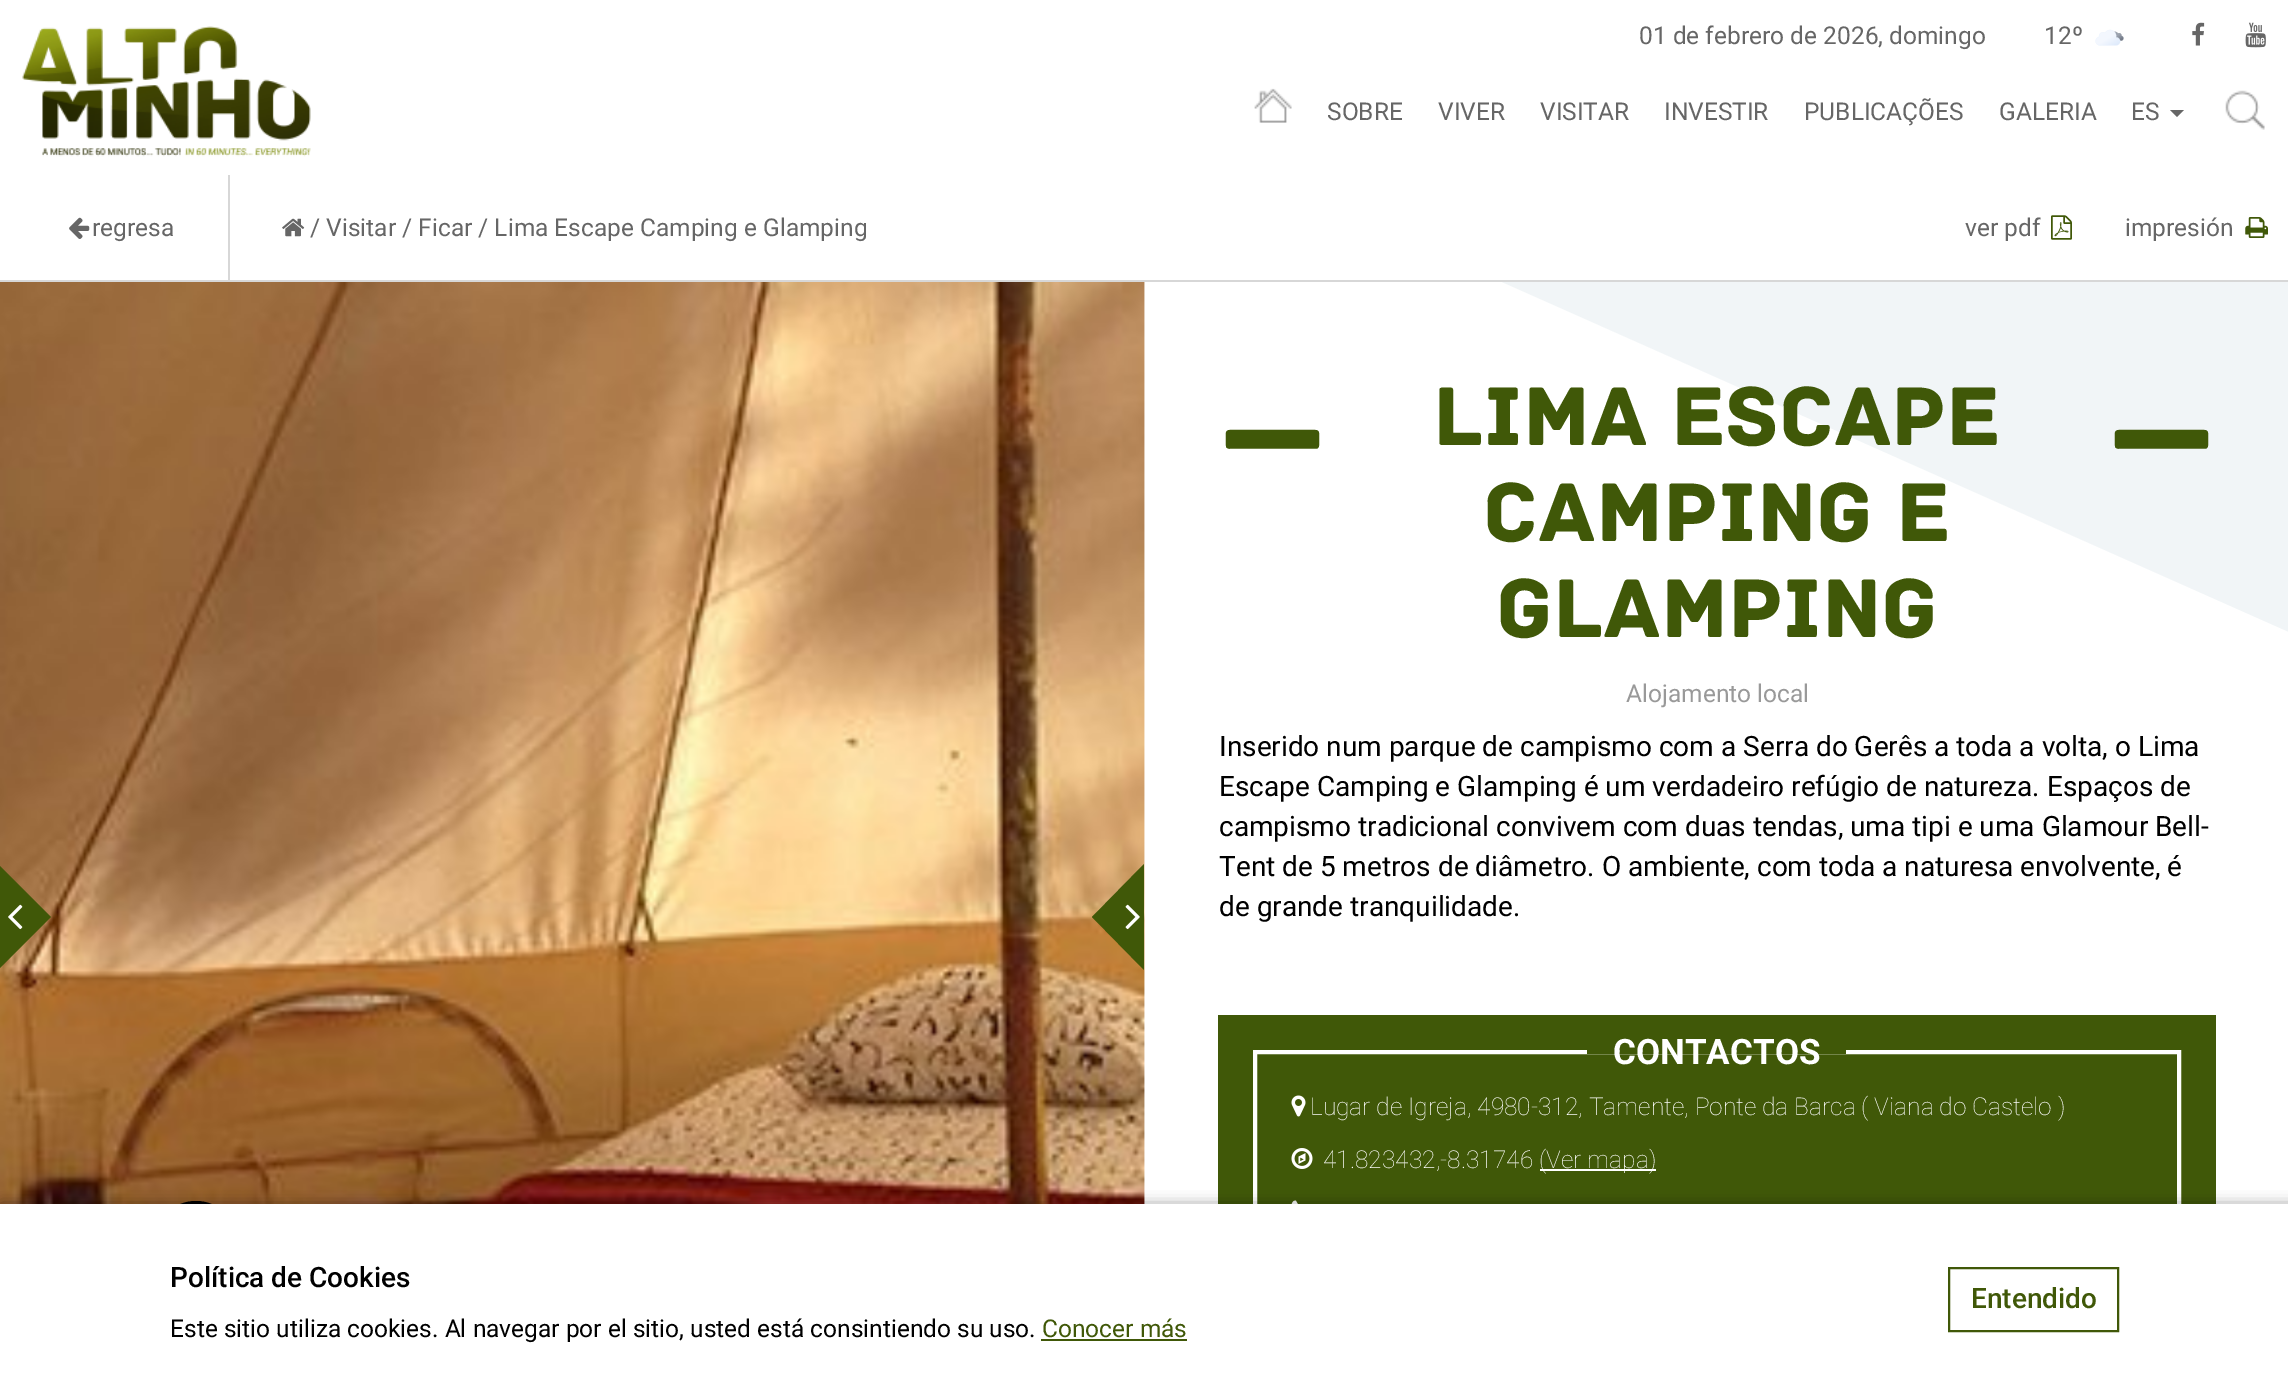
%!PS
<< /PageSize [2288 1395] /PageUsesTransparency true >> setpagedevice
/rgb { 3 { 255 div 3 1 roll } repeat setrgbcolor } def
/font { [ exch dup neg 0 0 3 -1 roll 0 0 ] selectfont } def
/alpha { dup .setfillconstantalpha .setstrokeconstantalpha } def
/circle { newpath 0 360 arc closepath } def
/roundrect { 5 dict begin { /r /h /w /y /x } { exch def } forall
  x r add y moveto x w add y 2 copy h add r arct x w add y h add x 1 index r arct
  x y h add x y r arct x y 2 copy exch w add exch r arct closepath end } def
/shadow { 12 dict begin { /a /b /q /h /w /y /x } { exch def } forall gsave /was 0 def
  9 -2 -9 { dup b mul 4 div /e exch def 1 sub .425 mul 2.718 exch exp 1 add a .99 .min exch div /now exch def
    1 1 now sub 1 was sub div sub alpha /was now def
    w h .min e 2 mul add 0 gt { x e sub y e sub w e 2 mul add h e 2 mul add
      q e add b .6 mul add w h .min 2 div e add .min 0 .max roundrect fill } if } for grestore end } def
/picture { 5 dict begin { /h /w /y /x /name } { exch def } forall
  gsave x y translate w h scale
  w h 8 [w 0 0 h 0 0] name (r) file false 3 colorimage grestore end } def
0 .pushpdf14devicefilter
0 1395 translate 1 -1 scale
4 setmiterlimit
255 255 255 rgb
0 0 2288 1395 rectfill
(img/1.rgb) 22 26 289 131 picture
(img/2.rgb) 2095 29 29 17 picture
(img/3.rgb) 2192 22 13 24 picture
(img/4.rgb) 2245 22 21 26 picture
(img/5.rgb) 1254 88 38 35 picture
102 102 102 rgb
2170 110 moveto 2184 110 lineto 2177 117 lineto closepath fill
(img/6.rgb) 2225 90 40 40 picture
215 215 215 rgb
0 280 2288 2 rectfill
228 175 2 105 rectfill
(img/7.rgb) 69 217 21 22 picture
(img/8.rgb) 282 218 23 19 picture
(img/9.rgb) 2051 215 21 25 picture
(img/10.rgb) 2245 217 23 21 picture
(img/11.rgb) 0 282 1145 922 picture
64 88 8 rgb
-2 970 moveto -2 864 lineto 51 917 lineto closepath fill
(img/12.rgb) 8 904 15 26 picture
1144 864 moveto 1144 970 lineto 1092 917 lineto closepath fill
(img/13.rgb) 1125 904 15 26 picture
241 245 247 rgb
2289 282 moveto 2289 632 lineto 1502 282 lineto closepath fill
64 88 8 rgb
1218 1015 998 189 rectfill
255 255 255 rgb
4 setlinewidth
1255 1052 924 283 rectstroke
64 88 8 rgb
1587 1050 259 4 rectfill
(img/14.rgb) 1291 1095 15 22 picture
(img/15.rgb) 1291 1148 22 21 picture
255 255 255 rgb
1540 1169 116 2 rectfill
(img/16.rgb) 1291 1200 7 4 picture
0 0 0 rgb
196 1243 42 circle fill
2 1206 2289 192 0 7 0.5 shadow
255 255 255 rgb
0 1204 2288 191 rectfill
64 88 8 rgb
1041 1339 146 2 rectfill
2 setlinewidth
1949 1268 169 63 rectstroke
/Roboto-Regular 24.5 font
102 102 102 rgb
[
  [(01 de febrero de 2026, domingo) 1639 44]
  [(12º) 2044 44]
  [(SOBRE) 1327 120]
  [(VIVER) 1438 120]
  [(VISITAR) 1540 120]
  [(INVESTIR) 1664 120]
  [(PUBLICAÇÕES) 1804 120]
  [(GALERIA) 1999 120]
  [(ES) 2131 120]
  [(regresa) 92 236]
  [(/ Visitar / Ficar / Lima Escape Camping e Glamping) 310 236]
  [(ver pdf) 1965 236]
  [(impresión) 2125 236]
] { aload pop moveto show } forall
/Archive-Regular 140 font
64 88 8 rgb
1219 478 moveto (—) show
/Archive-Regular 87.5 font
[
  [(Lima Escape) 1433 445]
  [(Camping e) 1483 541]
  [(Glamping) 1496 637]
] { aload pop moveto show } forall
/Archive-Regular 140 font
2108 478 moveto (—) show
/Roboto-Regular 24.5 font
153 153 153 rgb
1626 702 moveto (Alojamento local) show
/Roboto-Regular 28 font
0 0 0 rgb
[
  [(Inserido num parque de campismo com a Serra do Gerês a toda a volta, o Lima) 1219 756]
  [(Escape Camping e Glamping é um verdadeiro refúgio de natureza. Espaços de) 1219 796]
  [(campismo tradicional convivem com duas tendas, uma tipi e uma Glamour Bell-) 1219 836]
  [(Tent de 5 metros de diâmetro. O ambiente, com toda a naturesa envolvente, é) 1219 876]
  [(de grande tranquilidade.) 1219 916]
] { aload pop moveto show } forall
/Roboto-Bold 35 font
255 255 255 rgb
1613 1064 moveto (CONTACTOS) show
/Roboto-Thin 24.5 font
[
  [(Lugar de Igreja, 4980-312, Tamente, Ponte da Barca \( Viana do Castelo \)) 1310 1115]
  [(41.823432,-8.31746) 1323 1168]
  [(\(Ver mapa\)) 1539 1168]
] { aload pop moveto show } forall
/Roboto-Medium 28 font
0 0 0 rgb
170 1287 moveto (Política de Cookies) show
/Roboto-Regular 24.5 font
170 1337 moveto (Este sitio utiliza cookies. Al navegar por el sitio, usted está consintiendo su uso.) show
64 88 8 rgb
1042 1337 moveto (Conocer más) show
/Roboto-Medium 28 font
1971 1308 moveto (Entendido) show
.poppdf14devicefilter showpage
